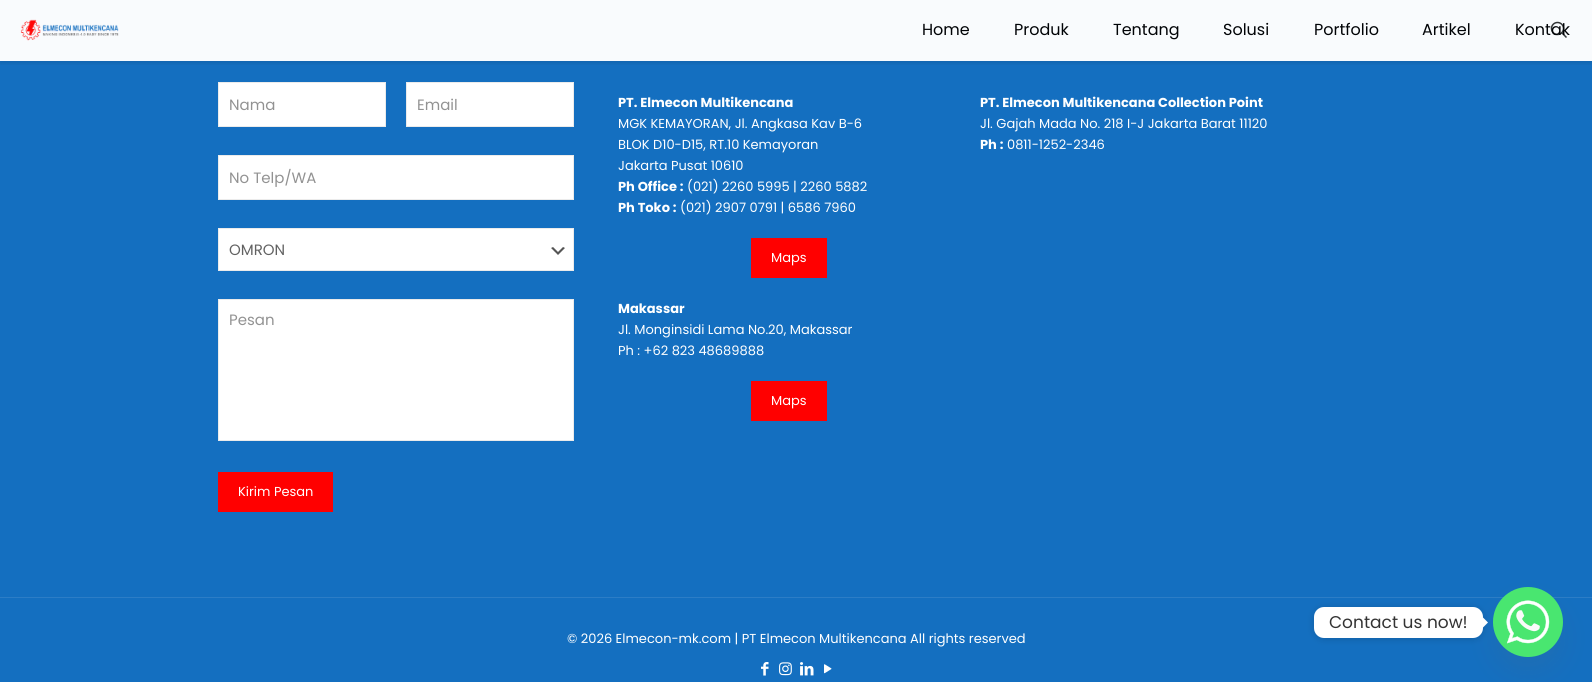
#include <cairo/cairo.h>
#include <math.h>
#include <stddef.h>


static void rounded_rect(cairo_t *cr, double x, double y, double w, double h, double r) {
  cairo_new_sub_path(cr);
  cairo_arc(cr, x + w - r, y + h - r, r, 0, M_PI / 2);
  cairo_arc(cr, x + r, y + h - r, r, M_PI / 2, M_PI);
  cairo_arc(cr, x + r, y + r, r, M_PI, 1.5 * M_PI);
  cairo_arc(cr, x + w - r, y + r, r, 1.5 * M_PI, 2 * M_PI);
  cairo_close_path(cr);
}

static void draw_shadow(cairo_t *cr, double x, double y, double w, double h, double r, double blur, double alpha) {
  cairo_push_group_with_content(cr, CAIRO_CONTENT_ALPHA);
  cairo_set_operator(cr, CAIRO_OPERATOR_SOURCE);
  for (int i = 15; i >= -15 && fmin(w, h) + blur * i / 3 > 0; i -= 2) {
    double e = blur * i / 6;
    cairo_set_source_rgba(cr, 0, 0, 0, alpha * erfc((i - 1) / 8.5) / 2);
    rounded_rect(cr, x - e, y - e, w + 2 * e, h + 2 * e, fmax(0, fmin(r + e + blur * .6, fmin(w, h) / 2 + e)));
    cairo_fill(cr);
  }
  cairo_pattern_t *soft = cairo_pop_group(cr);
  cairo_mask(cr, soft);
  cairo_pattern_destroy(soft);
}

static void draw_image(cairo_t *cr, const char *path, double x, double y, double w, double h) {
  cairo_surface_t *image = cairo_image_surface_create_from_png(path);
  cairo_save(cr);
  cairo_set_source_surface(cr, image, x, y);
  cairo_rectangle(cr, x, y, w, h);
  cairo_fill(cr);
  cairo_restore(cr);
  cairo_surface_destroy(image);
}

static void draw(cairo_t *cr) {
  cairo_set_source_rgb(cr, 20 / 255.0, 111 / 255.0, 192 / 255.0);
  cairo_paint(cr);
  cairo_save(cr);
  cairo_rectangle(cr, 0, 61, 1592, 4);
  cairo_clip(cr);
  cairo_set_source_rgb(cr, 0, 0, 0);
  draw_shadow(cr, 0, 2, 1592, 61, 0, 2.5, 0.1);
  cairo_restore(cr);
  cairo_set_source_rgba(cr, 1, 1, 1, 0.97);
  cairo_rectangle(cr, 0, 0, 1592, 61);
  cairo_fill(cr);
  cairo_arc(cr, 1557.5, 28.5, 6, 0, 2 * M_PI);
  cairo_set_source_rgb(cr, 50 / 255.0, 53 / 255.0, 55 / 255.0);
  cairo_set_line_width(cr, 1.5);
  cairo_stroke(cr);
  cairo_new_path(cr);
  cairo_move_to(cr, 1561.5, 32.5);
  cairo_line_to(cr, 1566.5, 37.5);
  cairo_stroke(cr);
  draw_image(cr, "images/1.png", 20, 19, 99, 22);
  cairo_set_source_rgb(cr, 1, 1, 1);
  cairo_rectangle(cr, 218.5, 82.5, 167, 44);
  cairo_fill_preserve(cr);
  cairo_set_source_rgb(cr, 235 / 255.0, 235 / 255.0, 235 / 255.0);
  cairo_set_line_width(cr, 1);
  cairo_stroke(cr);
  cairo_set_source_rgb(cr, 1, 1, 1);
  cairo_rectangle(cr, 406.5, 82.5, 167, 44);
  cairo_fill_preserve(cr);
  cairo_set_source_rgb(cr, 235 / 255.0, 235 / 255.0, 235 / 255.0);
  cairo_stroke(cr);
  cairo_set_source_rgb(cr, 1, 1, 1);
  cairo_rectangle(cr, 218.5, 155.5, 355, 44);
  cairo_fill_preserve(cr);
  cairo_set_source_rgb(cr, 235 / 255.0, 235 / 255.0, 235 / 255.0);
  cairo_stroke(cr);
  cairo_set_source_rgb(cr, 1, 1, 1);
  cairo_rectangle(cr, 219, 229, 354, 41);
  cairo_fill(cr);
  draw_image(cr, "images/2.png", 551, 247, 14, 8);
  cairo_rectangle(cr, 218.5, 228.5, 355, 42);
  cairo_set_source_rgb(cr, 235 / 255.0, 235 / 255.0, 235 / 255.0);
  cairo_stroke(cr);
  cairo_set_source_rgb(cr, 1, 1, 1);
  cairo_rectangle(cr, 218.5, 299.5, 355, 141);
  cairo_fill_preserve(cr);
  cairo_set_source_rgb(cr, 235 / 255.0, 235 / 255.0, 235 / 255.0);
  cairo_stroke(cr);
  cairo_set_source_rgb(cr, 1, 0, 0);
  cairo_rectangle(cr, 218, 472, 115, 40);
  cairo_fill(cr);
  cairo_rectangle(cr, 751, 238, 76, 40);
  cairo_fill(cr);
  cairo_rectangle(cr, 751, 381, 76, 40);
  cairo_fill(cr);
  cairo_set_source_rgb(cr, 44 / 255.0, 125 / 255.0, 198 / 255.0);
  cairo_rectangle(cr, 0, 597, 1592, 1);
  cairo_fill(cr);
  draw_image(cr, "images/3.png", 761, 662, 8, 14);
  draw_image(cr, "images/4.png", 779, 662, 13, 14);
  draw_image(cr, "images/5.png", 800, 662, 14, 14);
  draw_image(cr, "images/6.png", 824, 664, 8, 10);
  cairo_set_source_rgb(cr, 73 / 255.0, 104 / 255.0, 126 / 255.0);
  draw_shadow(cr, 1493, 603, 70, 70, 35, 12, 0.16);
  draw_image(cr, "images/7.png", 1493, 587, 70, 70);
  cairo_set_source_rgb(cr, 0, 0, 0);
  draw_shadow(cr, 1314, 608, 169, 31, 10, 4, 0.15);
  cairo_set_source_rgb(cr, 1, 1, 1);
  rounded_rect(cr, 1314, 607, 169, 31, 10);
  cairo_fill(cr);
  cairo_new_path(cr);
  cairo_move_to(cr, 1483, 627.5);
  cairo_line_to(cr, 1483, 617.5);
  cairo_line_to(cr, 1488, 622.5);
  cairo_close_path(cr);
  cairo_fill(cr);
  cairo_select_font_face(cr, "Poppins", CAIRO_FONT_SLANT_NORMAL, CAIRO_FONT_WEIGHT_NORMAL);
  cairo_set_font_size(cr, 16);
  cairo_set_source_rgb(cr, 1 / 255.0, 3 / 255.0, 6 / 255.0);
  cairo_move_to(cr, 922, 35);
  cairo_show_text(cr, "Home");
  cairo_move_to(cr, 1014, 35);
  cairo_show_text(cr, "Produk");
  cairo_move_to(cr, 1113, 35);
  cairo_show_text(cr, "Tentang");
  cairo_move_to(cr, 1223, 35);
  cairo_show_text(cr, "Solusi");
  cairo_move_to(cr, 1314, 35);
  cairo_show_text(cr, "Portfolio");
  cairo_move_to(cr, 1422, 35);
  cairo_show_text(cr, "Artikel");
  cairo_move_to(cr, 1515, 35);
  cairo_show_text(cr, "Kontak");
  cairo_set_font_size(cr, 15);
  cairo_set_source_rgb(cr, 146 / 255.0, 146 / 255.0, 146 / 255.0);
  cairo_move_to(cr, 229, 110);
  cairo_show_text(cr, "Nama");
  cairo_move_to(cr, 417, 110);
  cairo_show_text(cr, "Email");
  cairo_move_to(cr, 229, 183);
  cairo_show_text(cr, "No Telp/WA");
  cairo_set_source_rgb(cr, 98 / 255.0, 98 / 255.0, 98 / 255.0);
  cairo_move_to(cr, 229, 255);
  cairo_show_text(cr, "OMRON");
  cairo_set_source_rgb(cr, 146 / 255.0, 146 / 255.0, 146 / 255.0);
  cairo_move_to(cr, 229, 325);
  cairo_show_text(cr, "Pesan");
  cairo_set_font_size(cr, 13);
  cairo_set_source_rgb(cr, 1, 1, 1);
  cairo_move_to(cr, 238, 496);
  cairo_show_text(cr, "Kirim Pesan");
  cairo_select_font_face(cr, "Poppins", CAIRO_FONT_SLANT_NORMAL, CAIRO_FONT_WEIGHT_BOLD);
  cairo_move_to(cr, 618, 107);
  cairo_show_text(cr, "PT. Elmecon Multikencana");
  cairo_select_font_face(cr, "Poppins", CAIRO_FONT_SLANT_NORMAL, CAIRO_FONT_WEIGHT_NORMAL);
  cairo_move_to(cr, 618, 128);
  cairo_show_text(cr, "MGK KEMAYORAN, Jl. Angkasa Kav B-6");
  cairo_move_to(cr, 618, 149);
  cairo_show_text(cr, "BLOK D10-D15, RT.10 Kemayoran");
  cairo_move_to(cr, 618, 170);
  cairo_show_text(cr, "Jakarta Pusat 10610");
  cairo_select_font_face(cr, "Poppins", CAIRO_FONT_SLANT_NORMAL, CAIRO_FONT_WEIGHT_BOLD);
  cairo_move_to(cr, 618, 191);
  cairo_show_text(cr, "Ph Office :");
  cairo_select_font_face(cr, "Poppins", CAIRO_FONT_SLANT_NORMAL, CAIRO_FONT_WEIGHT_NORMAL);
  cairo_move_to(cr, 687, 191);
  cairo_show_text(cr, "(021) 2260 5995 | 2260 5882");
  cairo_select_font_face(cr, "Poppins", CAIRO_FONT_SLANT_NORMAL, CAIRO_FONT_WEIGHT_BOLD);
  cairo_move_to(cr, 618, 212);
  cairo_show_text(cr, "Ph Toko :");
  cairo_select_font_face(cr, "Poppins", CAIRO_FONT_SLANT_NORMAL, CAIRO_FONT_WEIGHT_NORMAL);
  cairo_move_to(cr, 680, 212);
  cairo_show_text(cr, "(021) 2907 0791 | 6586 7960");
  cairo_select_font_face(cr, "Poppins", CAIRO_FONT_SLANT_NORMAL, CAIRO_FONT_WEIGHT_BOLD);
  cairo_move_to(cr, 980, 107);
  cairo_show_text(cr, "PT. Elmecon Multikencana Collection Point");
  cairo_select_font_face(cr, "Poppins", CAIRO_FONT_SLANT_NORMAL, CAIRO_FONT_WEIGHT_NORMAL);
  cairo_move_to(cr, 980, 128);
  cairo_show_text(cr, "Jl. Gajah Mada No. 218 I-J Jakarta Barat 11120");
  cairo_select_font_face(cr, "Poppins", CAIRO_FONT_SLANT_NORMAL, CAIRO_FONT_WEIGHT_BOLD);
  cairo_move_to(cr, 980, 149);
  cairo_show_text(cr, "Ph :");
  cairo_select_font_face(cr, "Poppins", CAIRO_FONT_SLANT_NORMAL, CAIRO_FONT_WEIGHT_NORMAL);
  cairo_move_to(cr, 1007, 149);
  cairo_show_text(cr, "0811-1252-2346");
  cairo_move_to(cr, 771, 262);
  cairo_show_text(cr, "Maps");
  cairo_select_font_face(cr, "Poppins", CAIRO_FONT_SLANT_NORMAL, CAIRO_FONT_WEIGHT_BOLD);
  cairo_move_to(cr, 618, 313);
  cairo_show_text(cr, "Makassar");
  cairo_select_font_face(cr, "Poppins", CAIRO_FONT_SLANT_NORMAL, CAIRO_FONT_WEIGHT_NORMAL);
  cairo_move_to(cr, 618, 334);
  cairo_show_text(cr, "Jl. Monginsidi Lama No.20, Makassar");
  cairo_move_to(cr, 618, 355);
  cairo_show_text(cr, "Ph : +62 823 48689888");
  cairo_move_to(cr, 771, 405);
  cairo_show_text(cr, "Maps");
  cairo_move_to(cr, 567, 643);
  cairo_show_text(cr, "© 2026 Elmecon-mk.com | PT Elmecon Multikencana All rights reserved");
  cairo_set_font_size(cr, 17);
  cairo_set_source_rgb(cr, 51 / 255.0, 51 / 255.0, 51 / 255.0);
  cairo_move_to(cr, 1329, 628);
  cairo_show_text(cr, "Contact us now!");
}

int main(void) {
  cairo_surface_t *surface = cairo_image_surface_create(CAIRO_FORMAT_RGB24, 1592, 682);
  cairo_t *cr = cairo_create(surface);
  cairo_font_options_t *options = cairo_font_options_create();
  cairo_font_options_set_hint_metrics(options, CAIRO_HINT_METRICS_OFF);
  cairo_font_options_set_hint_style(options, CAIRO_HINT_STYLE_NONE);
  cairo_set_font_options(cr, options);
  cairo_set_miter_limit(cr, 4);
  draw(cr);
  cairo_surface_write_to_png(surface, "out.png");
  cairo_font_options_destroy(options);
  cairo_destroy(cr);
  cairo_surface_destroy(surface);
  return 0;
}
